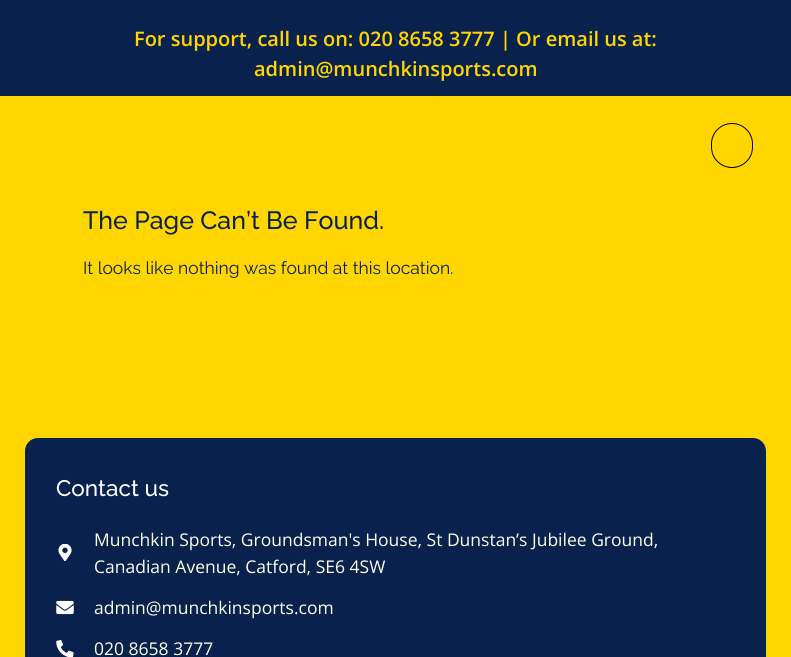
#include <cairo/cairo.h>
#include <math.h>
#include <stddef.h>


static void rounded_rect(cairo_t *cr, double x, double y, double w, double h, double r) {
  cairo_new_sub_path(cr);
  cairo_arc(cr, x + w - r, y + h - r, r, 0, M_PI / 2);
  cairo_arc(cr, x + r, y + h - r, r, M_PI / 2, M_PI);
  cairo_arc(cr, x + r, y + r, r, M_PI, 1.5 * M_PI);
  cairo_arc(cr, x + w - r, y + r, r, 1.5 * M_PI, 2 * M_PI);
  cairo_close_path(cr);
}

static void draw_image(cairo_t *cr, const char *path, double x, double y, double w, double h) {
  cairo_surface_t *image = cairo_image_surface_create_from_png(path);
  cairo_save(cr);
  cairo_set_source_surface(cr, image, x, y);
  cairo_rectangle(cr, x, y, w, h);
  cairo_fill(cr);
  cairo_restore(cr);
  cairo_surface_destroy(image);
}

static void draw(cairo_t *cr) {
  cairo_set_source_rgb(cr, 1, 214 / 255.0, 0);
  cairo_paint(cr);
  cairo_set_source_rgb(cr, 9 / 255.0, 33 / 255.0, 77 / 255.0);
  cairo_rectangle(cr, 0, 0, 791, 96);
  cairo_fill(cr);
  rounded_rect(cr, 711.5, 123.5, 41, 44, 20.5);
  cairo_set_source_rgb(cr, 0, 0, 0);
  cairo_set_line_width(cr, 1);
  cairo_stroke(cr);
  cairo_set_source_rgb(cr, 9 / 255.0, 33 / 255.0, 77 / 255.0);
  rounded_rect(cr, 25, 438, 741, 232, 13);
  cairo_fill(cr);
  draw_image(cr, "images/1.png", 58, 544, 14, 17);
  draw_image(cr, "images/2.png", 56, 600, 18, 15);
  draw_image(cr, "images/3.png", 56, 640, 18, 17);
  cairo_select_font_face(cr, "Open Sans SemiBold", CAIRO_FONT_SLANT_NORMAL, CAIRO_FONT_WEIGHT_NORMAL);
  cairo_set_font_size(cr, 20);
  cairo_set_source_rgb(cr, 1, 214 / 255.0, 0);
  cairo_move_to(cr, 134, 46);
  cairo_show_text(cr, "For support, call us on: 020 8658 3777 | Or email us at:");
  cairo_move_to(cr, 254, 76);
  cairo_show_text(cr, "admin@munchkinsports.com");
  cairo_select_font_face(cr, "Raleway Medium", CAIRO_FONT_SLANT_NORMAL, CAIRO_FONT_WEIGHT_NORMAL);
  cairo_set_font_size(cr, 25);
  cairo_set_source_rgb(cr, 9 / 255.0, 33 / 255.0, 77 / 255.0);
  cairo_move_to(cr, 83, 229);
  cairo_show_text(cr, "The Page Can’t Be Found.");
  cairo_select_font_face(cr, "Raleway", CAIRO_FONT_SLANT_NORMAL, CAIRO_FONT_WEIGHT_NORMAL);
  cairo_set_font_size(cr, 17.5);
  cairo_move_to(cr, 83, 274);
  cairo_show_text(cr, "It looks like nothing was found at this location.");
  cairo_select_font_face(cr, "Raleway Medium", CAIRO_FONT_SLANT_NORMAL, CAIRO_FONT_WEIGHT_NORMAL);
  cairo_set_font_size(cr, 22.5);
  cairo_set_source_rgb(cr, 1, 1, 1);
  cairo_move_to(cr, 56, 496);
  cairo_show_text(cr, "Contact us");
  cairo_select_font_face(cr, "Open Sans", CAIRO_FONT_SLANT_NORMAL, CAIRO_FONT_WEIGHT_NORMAL);
  cairo_set_font_size(cr, 17.5);
  cairo_set_source_rgb(cr, 253 / 255.0, 1, 236 / 255.0);
  cairo_move_to(cr, 94, 546);
  cairo_show_text(cr, "Munchkin Sports, Groundsman's House, St Dunstan’s Jubilee Ground,");
  cairo_move_to(cr, 94, 573);
  cairo_show_text(cr, "Canadian Avenue, Catford, SE6 4SW");
  cairo_move_to(cr, 94, 614);
  cairo_show_text(cr, "admin@munchkinsports.com");
  cairo_move_to(cr, 94, 655);
  cairo_show_text(cr, "020 8658 3777");
}

int main(void) {
  cairo_surface_t *surface = cairo_image_surface_create(CAIRO_FORMAT_RGB24, 791, 657);
  cairo_t *cr = cairo_create(surface);
  cairo_font_options_t *options = cairo_font_options_create();
  cairo_font_options_set_hint_metrics(options, CAIRO_HINT_METRICS_OFF);
  cairo_font_options_set_hint_style(options, CAIRO_HINT_STYLE_NONE);
  cairo_set_font_options(cr, options);
  cairo_set_miter_limit(cr, 4);
  draw(cr);
  cairo_surface_write_to_png(surface, "out.png");
  cairo_font_options_destroy(options);
  cairo_destroy(cr);
  cairo_surface_destroy(surface);
  return 0;
}
